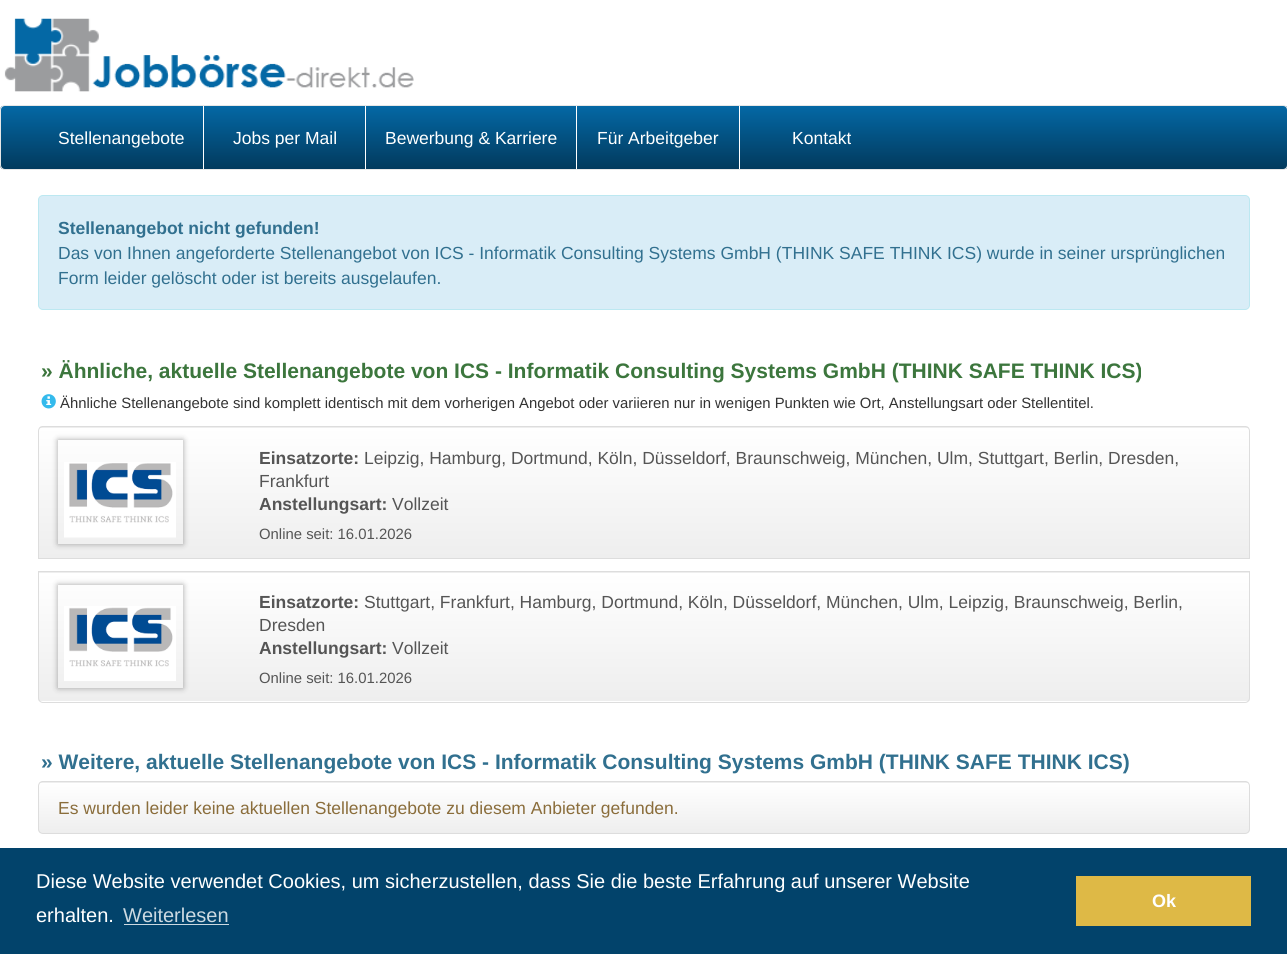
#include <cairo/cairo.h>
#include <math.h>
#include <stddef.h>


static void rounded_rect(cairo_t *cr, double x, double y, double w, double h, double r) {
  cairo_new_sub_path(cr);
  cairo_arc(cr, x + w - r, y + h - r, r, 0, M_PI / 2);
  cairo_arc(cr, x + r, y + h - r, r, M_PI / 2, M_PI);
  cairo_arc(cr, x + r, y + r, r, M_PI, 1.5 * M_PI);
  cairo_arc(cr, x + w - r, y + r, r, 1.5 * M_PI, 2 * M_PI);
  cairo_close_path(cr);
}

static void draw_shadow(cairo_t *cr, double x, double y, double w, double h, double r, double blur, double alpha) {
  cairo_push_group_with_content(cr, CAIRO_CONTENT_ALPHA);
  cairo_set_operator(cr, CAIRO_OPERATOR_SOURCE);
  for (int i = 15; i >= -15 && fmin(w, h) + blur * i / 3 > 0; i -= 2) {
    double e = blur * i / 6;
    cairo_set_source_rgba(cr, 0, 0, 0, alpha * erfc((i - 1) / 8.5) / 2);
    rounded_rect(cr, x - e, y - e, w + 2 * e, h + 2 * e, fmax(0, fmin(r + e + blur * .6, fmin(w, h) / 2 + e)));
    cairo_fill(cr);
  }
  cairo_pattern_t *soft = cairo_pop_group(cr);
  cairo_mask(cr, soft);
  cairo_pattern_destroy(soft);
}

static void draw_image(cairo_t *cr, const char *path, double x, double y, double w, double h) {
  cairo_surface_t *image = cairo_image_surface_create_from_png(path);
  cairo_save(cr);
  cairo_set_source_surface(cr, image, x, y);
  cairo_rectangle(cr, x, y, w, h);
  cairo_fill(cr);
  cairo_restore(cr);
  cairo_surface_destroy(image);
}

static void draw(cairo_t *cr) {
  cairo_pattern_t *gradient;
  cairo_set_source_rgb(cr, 1, 1, 1);
  cairo_paint(cr);
  draw_image(cr, "images/1.png", 4, 18, 95, 74);
  draw_image(cr, "images/2.png", 92, 55, 322, 33);
  cairo_save(cr);
  rounded_rect(cr, 0, 105, 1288, 65, 5);
  cairo_clip(cr);
  gradient = cairo_pattern_create_linear(644, 106, 644, 169);
  cairo_pattern_add_color_stop_rgba(gradient, 0, 4 / 255.0, 104 / 255.0, 165 / 255.0, 1);
  cairo_pattern_add_color_stop_rgba(gradient, 1, 2 / 255.0, 58 / 255.0, 93 / 255.0, 1);
  cairo_set_source(cr, gradient);
  cairo_pattern_destroy(gradient);
  cairo_rectangle(cr, 0, 106, 1287, 63);
  cairo_fill(cr);
  cairo_restore(cr);
  rounded_rect(cr, 0.5, 105.5, 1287, 64, 4.5);
  cairo_set_source_rgb(cr, 231 / 255.0, 231 / 255.0, 231 / 255.0);
  cairo_set_line_width(cr, 1);
  cairo_stroke(cr);
  cairo_set_source_rgb(cr, 1, 1, 1);
  cairo_rectangle(cr, 203, 106, 1, 63);
  cairo_fill(cr);
  cairo_rectangle(cr, 365, 106, 1, 63);
  cairo_fill(cr);
  cairo_rectangle(cr, 576, 106, 1, 63);
  cairo_fill(cr);
  cairo_rectangle(cr, 739, 106, 1, 63);
  cairo_fill(cr);
  cairo_set_source_rgb(cr, 217 / 255.0, 237 / 255.0, 247 / 255.0);
  rounded_rect(cr, 38.5, 195.5, 1211, 114, 4.5);
  cairo_fill_preserve(cr);
  cairo_set_source_rgb(cr, 188 / 255.0, 232 / 255.0, 241 / 255.0);
  cairo_stroke(cr);
  draw_image(cr, "images/3.png", 41, 394, 15, 15);
  cairo_save(cr);
  cairo_new_path(cr);
  cairo_move_to(cr, 43, 426);
  cairo_line_to(cr, 1245, 426);
  cairo_curve_to(cr, 1248, 426, 1250, 428, 1250, 431);
  cairo_line_to(cr, 1250, 559);
  cairo_line_to(cr, 38, 559);
  cairo_line_to(cr, 38, 431);
  cairo_curve_to(cr, 38, 428, 40, 426, 43, 426);
  cairo_close_path(cr);
  cairo_clip(cr);
  gradient = cairo_pattern_create_linear(644, 297, 644, 428);
  cairo_pattern_add_color_stop_rgba(gradient, 0, 1, 1, 1, 1);
  cairo_pattern_add_color_stop_rgba(gradient, 1, 238 / 255.0, 238 / 255.0, 238 / 255.0, 1);
  cairo_set_source(cr, gradient);
  cairo_pattern_destroy(gradient);
  cairo_rectangle(cr, 38, 426, 1212, 2);
  cairo_fill(cr);
  gradient = cairo_pattern_create_linear(644, 427, 644, 558);
  cairo_pattern_add_color_stop_rgba(gradient, 0, 1, 1, 1, 1);
  cairo_pattern_add_color_stop_rgba(gradient, 1, 238 / 255.0, 238 / 255.0, 238 / 255.0, 1);
  cairo_set_source(cr, gradient);
  cairo_pattern_destroy(gradient);
  cairo_rectangle(cr, 38, 428, 1212, 130);
  cairo_fill(cr);
  cairo_restore(cr);
  cairo_new_path(cr);
  cairo_move_to(cr, 43, 426.5);
  cairo_line_to(cr, 1245, 426.5);
  cairo_curve_to(cr, 1247.5, 426.5, 1249.5, 428.5, 1249.5, 431);
  cairo_line_to(cr, 1249.5, 558.5);
  cairo_line_to(cr, 38.5, 558.5);
  cairo_line_to(cr, 38.5, 431);
  cairo_curve_to(cr, 38.5, 428.5, 40.5, 426.5, 43, 426.5);
  cairo_close_path(cr);
  cairo_set_source_rgb(cr, 221 / 255.0, 221 / 255.0, 221 / 255.0);
  cairo_stroke(cr);
  cairo_save(cr);
  cairo_set_fill_rule(cr, CAIRO_FILL_RULE_EVEN_ODD);
  cairo_new_path(cr);
  cairo_move_to(cr, 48, 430);
  cairo_line_to(cr, 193, 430);
  cairo_line_to(cr, 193, 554);
  cairo_line_to(cr, 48, 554);
  cairo_close_path(cr);
  cairo_move_to(cr, 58, 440);
  cairo_line_to(cr, 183, 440);
  cairo_line_to(cr, 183, 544);
  cairo_line_to(cr, 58, 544);
  cairo_close_path(cr);
  cairo_clip(cr);
  cairo_set_source_rgb(cr, 0, 0, 0);
  draw_shadow(cr, 58, 440, 125, 104, 0, 3, 0.35);
  cairo_restore(cr);
  draw_image(cr, "images/4.png", 64, 462, 112, 76);
  gradient = cairo_pattern_create_linear(644, 444, 644, 573);
  cairo_pattern_add_color_stop_rgba(gradient, 0, 1, 1, 1, 1);
  cairo_pattern_add_color_stop_rgba(gradient, 1, 238 / 255.0, 238 / 255.0, 238 / 255.0, 1);
  cairo_set_source(cr, gradient);
  cairo_pattern_destroy(gradient);
  cairo_rectangle(cr, 38, 572, 1212, 1);
  cairo_fill(cr);
  cairo_save(cr);
  cairo_new_path(cr);
  cairo_move_to(cr, 38, 571);
  cairo_line_to(cr, 1250, 571);
  cairo_line_to(cr, 1250, 698);
  cairo_curve_to(cr, 1250, 701, 1248, 703, 1245, 703);
  cairo_line_to(cr, 43, 703);
  cairo_curve_to(cr, 40, 703, 38, 701, 38, 698);
  cairo_close_path(cr);
  cairo_clip(cr);
  gradient = cairo_pattern_create_linear(644, 572, 644, 701);
  cairo_pattern_add_color_stop_rgba(gradient, 0, 1, 1, 1, 1);
  cairo_pattern_add_color_stop_rgba(gradient, 1, 238 / 255.0, 238 / 255.0, 238 / 255.0, 1);
  cairo_set_source(cr, gradient);
  cairo_pattern_destroy(gradient);
  cairo_rectangle(cr, 38, 573, 1212, 128);
  cairo_fill(cr);
  cairo_restore(cr);
  cairo_new_path(cr);
  cairo_move_to(cr, 38.5, 571.5);
  cairo_line_to(cr, 1249.5, 571.5);
  cairo_line_to(cr, 1249.5, 698);
  cairo_curve_to(cr, 1249.5, 700.5, 1247.5, 702.5, 1245, 702.5);
  cairo_line_to(cr, 43, 702.5);
  cairo_curve_to(cr, 40.5, 702.5, 38.5, 700.5, 38.5, 698);
  cairo_close_path(cr);
  cairo_set_source_rgb(cr, 221 / 255.0, 221 / 255.0, 221 / 255.0);
  cairo_stroke(cr);
  cairo_save(cr);
  cairo_set_fill_rule(cr, CAIRO_FILL_RULE_EVEN_ODD);
  cairo_new_path(cr);
  cairo_move_to(cr, 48, 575);
  cairo_line_to(cr, 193, 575);
  cairo_line_to(cr, 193, 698);
  cairo_line_to(cr, 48, 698);
  cairo_close_path(cr);
  cairo_move_to(cr, 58, 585);
  cairo_line_to(cr, 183, 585);
  cairo_line_to(cr, 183, 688);
  cairo_line_to(cr, 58, 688);
  cairo_close_path(cr);
  cairo_clip(cr);
  cairo_set_source_rgb(cr, 0, 0, 0);
  draw_shadow(cr, 58, 585, 125, 103, 0, 3, 0.35);
  cairo_restore(cr);
  draw_image(cr, "images/5.png", 64, 606, 112, 75);
  cairo_save(cr);
  rounded_rect(cr, 38, 781, 1212, 53, 5);
  cairo_clip(cr);
  gradient = cairo_pattern_create_linear(644, 732, 644, 783);
  cairo_pattern_add_color_stop_rgba(gradient, 0, 1, 1, 1, 1);
  cairo_pattern_add_color_stop_rgba(gradient, 1, 238 / 255.0, 238 / 255.0, 238 / 255.0, 1);
  cairo_set_source(cr, gradient);
  cairo_pattern_destroy(gradient);
  cairo_rectangle(cr, 38, 781, 1212, 2);
  cairo_fill(cr);
  gradient = cairo_pattern_create_linear(644, 782, 644, 833);
  cairo_pattern_add_color_stop_rgba(gradient, 0, 1, 1, 1, 1);
  cairo_pattern_add_color_stop_rgba(gradient, 1, 238 / 255.0, 238 / 255.0, 238 / 255.0, 1);
  cairo_set_source(cr, gradient);
  cairo_pattern_destroy(gradient);
  cairo_rectangle(cr, 38, 783, 1212, 50);
  cairo_fill(cr);
  cairo_restore(cr);
  rounded_rect(cr, 38.5, 781.5, 1211, 52, 4.5);
  cairo_stroke(cr);
  cairo_set_source_rgb(cr, 2 / 255.0, 67 / 255.0, 107 / 255.0);
  cairo_rectangle(cr, 0, 848, 1287, 106);
  cairo_fill(cr);
  cairo_set_source_rgb(cr, 204 / 255.0, 217 / 255.0, 225 / 255.0);
  cairo_rectangle(cr, 124, 924, 105, 1);
  cairo_fill(cr);
  cairo_set_source_rgb(cr, 222 / 255.0, 185 / 255.0, 70 / 255.0);
  cairo_rectangle(cr, 1076, 876, 175, 50);
  cairo_fill(cr);
  cairo_select_font_face(cr, "Liberation Sans", CAIRO_FONT_SLANT_NORMAL, CAIRO_FONT_WEIGHT_NORMAL);
  cairo_set_font_size(cr, 17.5);
  cairo_set_source_rgb(cr, 1, 1, 1);
  cairo_move_to(cr, 58, 144);
  cairo_show_text(cr, "Stellenangebote");
  cairo_move_to(cr, 233, 144);
  cairo_show_text(cr, "Jobs per Mail");
  cairo_move_to(cr, 385, 144);
  cairo_show_text(cr, "Bewerbung & Karriere");
  cairo_move_to(cr, 597, 144);
  cairo_show_text(cr, "Für Arbeitgeber");
  cairo_move_to(cr, 792, 144);
  cairo_show_text(cr, "Kontakt");
  cairo_select_font_face(cr, "Liberation Sans", CAIRO_FONT_SLANT_NORMAL, CAIRO_FONT_WEIGHT_BOLD);
  cairo_set_source_rgb(cr, 49 / 255.0, 112 / 255.0, 143 / 255.0);
  cairo_move_to(cr, 58, 234);
  cairo_show_text(cr, "Stellenangebot nicht gefunden!");
  cairo_select_font_face(cr, "Liberation Sans", CAIRO_FONT_SLANT_NORMAL, CAIRO_FONT_WEIGHT_NORMAL);
  cairo_move_to(cr, 58, 259);
  cairo_show_text(cr, "Das von Ihnen angeforderte Stellenangebot von ICS - Informatik Consulting Systems GmbH (THINK SAFE THINK ICS) wurde in seiner ursprünglichen");
  cairo_move_to(cr, 58, 284);
  cairo_show_text(cr, "Form leider gelöscht oder ist bereits ausgelaufen.");
  cairo_select_font_face(cr, "Liberation Sans", CAIRO_FONT_SLANT_NORMAL, CAIRO_FONT_WEIGHT_BOLD);
  cairo_set_font_size(cr, 21);
  cairo_set_source_rgb(cr, 60 / 255.0, 118 / 255.0, 61 / 255.0);
  cairo_move_to(cr, 41, 378);
  cairo_show_text(cr, "» Ähnliche, aktuelle Stellenangebote von ICS - Informatik Consulting Systems GmbH (THINK SAFE THINK ICS)");
  cairo_select_font_face(cr, "Liberation Sans", CAIRO_FONT_SLANT_NORMAL, CAIRO_FONT_WEIGHT_NORMAL);
  cairo_set_font_size(cr, 14.88);
  cairo_set_source_rgb(cr, 51 / 255.0, 51 / 255.0, 51 / 255.0);
  cairo_move_to(cr, 60, 408);
  cairo_show_text(cr, "Ähnliche Stellenangebote sind komplett identisch mit dem vorherigen Angebot oder variieren nur in wenigen Punkten wie Ort, Anstellungsart oder Stellentitel.");
  cairo_select_font_face(cr, "Liberation Sans", CAIRO_FONT_SLANT_NORMAL, CAIRO_FONT_WEIGHT_BOLD);
  cairo_set_font_size(cr, 17.5);
  cairo_set_source_rgb(cr, 85 / 255.0, 85 / 255.0, 85 / 255.0);
  cairo_move_to(cr, 259, 464);
  cairo_show_text(cr, "Einsatzorte:");
  cairo_select_font_face(cr, "Liberation Sans", CAIRO_FONT_SLANT_NORMAL, CAIRO_FONT_WEIGHT_NORMAL);
  cairo_move_to(cr, 364, 464);
  cairo_show_text(cr, "Leipzig, Hamburg, Dortmund, Köln, Düsseldorf, Braunschweig, München, Ulm, Stuttgart, Berlin, Dresden,");
  cairo_move_to(cr, 259, 487);
  cairo_show_text(cr, "Frankfurt");
  cairo_select_font_face(cr, "Liberation Sans", CAIRO_FONT_SLANT_NORMAL, CAIRO_FONT_WEIGHT_BOLD);
  cairo_move_to(cr, 259, 510);
  cairo_show_text(cr, "Anstellungsart:");
  cairo_select_font_face(cr, "Liberation Sans", CAIRO_FONT_SLANT_NORMAL, CAIRO_FONT_WEIGHT_NORMAL);
  cairo_move_to(cr, 392, 510);
  cairo_show_text(cr, "Vollzeit");
  cairo_set_font_size(cr, 14.88);
  cairo_move_to(cr, 259, 539);
  cairo_show_text(cr, "Online seit: 16.01.2026");
  cairo_select_font_face(cr, "Liberation Sans", CAIRO_FONT_SLANT_NORMAL, CAIRO_FONT_WEIGHT_BOLD);
  cairo_set_font_size(cr, 17.5);
  cairo_move_to(cr, 259, 608);
  cairo_show_text(cr, "Einsatzorte:");
  cairo_select_font_face(cr, "Liberation Sans", CAIRO_FONT_SLANT_NORMAL, CAIRO_FONT_WEIGHT_NORMAL);
  cairo_move_to(cr, 364, 608);
  cairo_show_text(cr, "Stuttgart, Frankfurt, Hamburg, Dortmund, Köln, Düsseldorf, München, Ulm, Leipzig, Braunschweig, Berlin,");
  cairo_move_to(cr, 259, 631);
  cairo_show_text(cr, "Dresden");
  cairo_select_font_face(cr, "Liberation Sans", CAIRO_FONT_SLANT_NORMAL, CAIRO_FONT_WEIGHT_BOLD);
  cairo_move_to(cr, 259, 654);
  cairo_show_text(cr, "Anstellungsart:");
  cairo_select_font_face(cr, "Liberation Sans", CAIRO_FONT_SLANT_NORMAL, CAIRO_FONT_WEIGHT_NORMAL);
  cairo_move_to(cr, 392, 654);
  cairo_show_text(cr, "Vollzeit");
  cairo_set_font_size(cr, 14.88);
  cairo_move_to(cr, 259, 683);
  cairo_show_text(cr, "Online seit: 16.01.2026");
  cairo_select_font_face(cr, "Liberation Sans", CAIRO_FONT_SLANT_NORMAL, CAIRO_FONT_WEIGHT_BOLD);
  cairo_set_font_size(cr, 21);
  cairo_set_source_rgb(cr, 49 / 255.0, 112 / 255.0, 143 / 255.0);
  cairo_move_to(cr, 41, 769);
  cairo_show_text(cr, "» Weitere, aktuelle Stellenangebote von ICS - Informatik Consulting Systems GmbH (THINK SAFE THINK ICS)");
  cairo_select_font_face(cr, "Liberation Sans", CAIRO_FONT_SLANT_NORMAL, CAIRO_FONT_WEIGHT_NORMAL);
  cairo_set_font_size(cr, 17.5);
  cairo_set_source_rgb(cr, 138 / 255.0, 109 / 255.0, 59 / 255.0);
  cairo_move_to(cr, 58, 814);
  cairo_show_text(cr, "Es wurden leider keine aktuellen Stellenangebote zu diesem Anbieter gefunden.");
  cairo_set_font_size(cr, 20);
  cairo_set_source_rgb(cr, 1, 1, 1);
  cairo_move_to(cr, 36, 888);
  cairo_show_text(cr, "Diese Website verwendet Cookies, um sicherzustellen, dass Sie die beste Erfahrung auf unserer Website");
  cairo_move_to(cr, 36, 922);
  cairo_show_text(cr, "erhalten.");
  cairo_set_source_rgb(cr, 204 / 255.0, 217 / 255.0, 225 / 255.0);
  cairo_move_to(cr, 123, 922);
  cairo_show_text(cr, "Weiterlesen");
  cairo_select_font_face(cr, "Liberation Sans", CAIRO_FONT_SLANT_NORMAL, CAIRO_FONT_WEIGHT_BOLD);
  cairo_set_font_size(cr, 18);
  cairo_set_source_rgb(cr, 1, 1, 1);
  cairo_move_to(cr, 1152, 907);
  cairo_show_text(cr, "Ok");
}

int main(void) {
  cairo_surface_t *surface = cairo_image_surface_create(CAIRO_FORMAT_RGB24, 1287, 954);
  cairo_t *cr = cairo_create(surface);
  cairo_font_options_t *options = cairo_font_options_create();
  cairo_font_options_set_hint_metrics(options, CAIRO_HINT_METRICS_OFF);
  cairo_font_options_set_hint_style(options, CAIRO_HINT_STYLE_NONE);
  cairo_set_font_options(cr, options);
  cairo_set_miter_limit(cr, 4);
  draw(cr);
  cairo_surface_write_to_png(surface, "out.png");
  cairo_font_options_destroy(options);
  cairo_destroy(cr);
  cairo_surface_destroy(surface);
  return 0;
}
